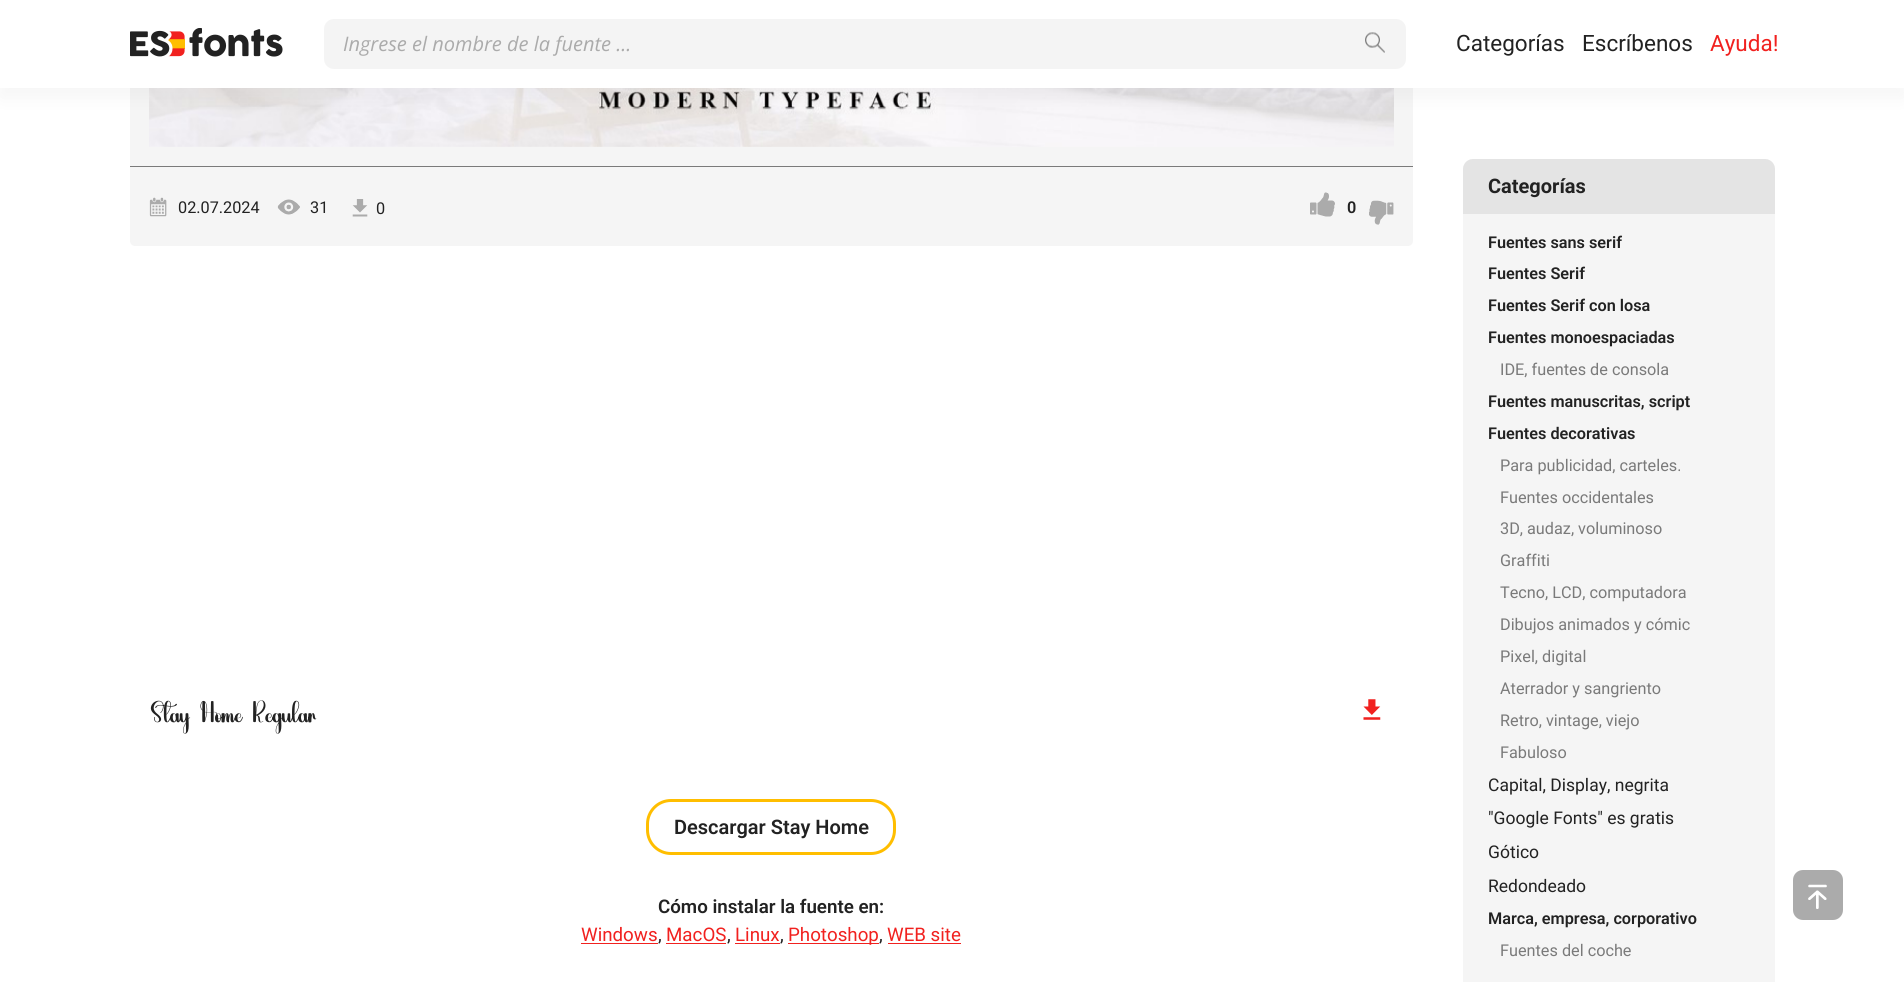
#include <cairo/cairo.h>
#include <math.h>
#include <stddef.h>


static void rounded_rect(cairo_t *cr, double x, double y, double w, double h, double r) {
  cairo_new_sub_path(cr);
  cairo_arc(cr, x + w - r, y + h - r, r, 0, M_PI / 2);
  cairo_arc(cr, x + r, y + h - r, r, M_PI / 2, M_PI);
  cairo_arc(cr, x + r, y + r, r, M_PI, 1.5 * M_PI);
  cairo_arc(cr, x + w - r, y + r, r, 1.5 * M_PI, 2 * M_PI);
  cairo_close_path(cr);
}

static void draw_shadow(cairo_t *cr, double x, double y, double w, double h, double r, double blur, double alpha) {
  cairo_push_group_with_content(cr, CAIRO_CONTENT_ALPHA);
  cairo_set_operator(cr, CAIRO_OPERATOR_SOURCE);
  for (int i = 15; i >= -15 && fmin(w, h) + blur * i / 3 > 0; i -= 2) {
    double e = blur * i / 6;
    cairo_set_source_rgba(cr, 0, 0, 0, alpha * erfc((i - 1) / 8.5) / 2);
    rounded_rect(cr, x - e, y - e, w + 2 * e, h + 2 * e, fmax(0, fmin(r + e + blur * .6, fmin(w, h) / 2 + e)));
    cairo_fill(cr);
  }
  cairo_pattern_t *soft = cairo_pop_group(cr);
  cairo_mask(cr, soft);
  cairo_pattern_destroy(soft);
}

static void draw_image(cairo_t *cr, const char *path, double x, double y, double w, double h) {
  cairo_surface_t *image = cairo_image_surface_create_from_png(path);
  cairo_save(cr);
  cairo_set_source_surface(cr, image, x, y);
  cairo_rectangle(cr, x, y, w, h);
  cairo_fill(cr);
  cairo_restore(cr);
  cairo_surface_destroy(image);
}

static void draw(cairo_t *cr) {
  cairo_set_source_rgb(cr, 1, 1, 1);
  cairo_paint(cr);
  cairo_set_source_rgb(cr, 245 / 255.0, 245 / 255.0, 245 / 255.0);
  rounded_rect(cr, 130, -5, 1283, 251, 5);
  cairo_fill(cr);
  draw_image(cr, "images/3.png", 149, 88, 1245, 59);
  cairo_set_source_rgb(cr, 0, 0, 0);
  draw_shadow(cr, 0, 10, 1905, 88, 0, 10, 0.04);
  cairo_set_source_rgb(cr, 1, 1, 1);
  cairo_rectangle(cr, 0, 0, 1904, 88);
  cairo_fill(cr);
  draw_image(cr, "images/1.png", 130, 28, 153, 29);
  cairo_set_source_rgb(cr, 244 / 255.0, 244 / 255.0, 244 / 255.0);
  rounded_rect(cr, 324, 19, 1082, 50, 10);
  cairo_fill(cr);
  draw_image(cr, "images/2.png", 1365, 32, 20, 21);
  cairo_set_source_rgb(cr, 122 / 255.0, 122 / 255.0, 122 / 255.0);
  cairo_rectangle(cr, 130, 166, 1283, 1);
  cairo_fill(cr);
  draw_image(cr, "images/4.png", 149, 197, 18, 20);
  draw_image(cr, "images/5.png", 277, 199, 23, 16);
  draw_image(cr, "images/6.png", 352, 199, 16, 18);
  draw_image(cr, "images/7.png", 1310, 192, 25, 25);
  draw_image(cr, "images/8.png", 1369, 200, 25, 25);
  draw_image(cr, "images/9.png", 1363, 699, 18, 21);
  rounded_rect(cr, 647.5, 800.5, 247, 53, 23.5);
  cairo_set_source_rgb(cr, 1, 190 / 255.0, 0);
  cairo_set_line_width(cr, 3);
  cairo_stroke(cr);
  cairo_set_source_rgb(cr, 241 / 255.0, 33 / 255.0, 31 / 255.0);
  cairo_rectangle(cr, 581, 943, 77, 1);
  cairo_fill(cr);
  cairo_rectangle(cr, 666, 943, 60, 1);
  cairo_fill(cr);
  cairo_rectangle(cr, 735, 943, 45, 1);
  cairo_fill(cr);
  cairo_rectangle(cr, 788, 943, 91, 1);
  cairo_fill(cr);
  cairo_rectangle(cr, 888, 943, 73, 1);
  cairo_fill(cr);
  cairo_set_source_rgb(cr, 245 / 255.0, 245 / 255.0, 245 / 255.0);
  rounded_rect(cr, 1463, 159, 312, 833, 10);
  cairo_fill(cr);
  cairo_set_source_rgba(cr, 34 / 255.0, 34 / 255.0, 34 / 255.0, 0.08);
  cairo_new_path(cr);
  cairo_move_to(cr, 1473, 159);
  cairo_line_to(cr, 1765, 159);
  cairo_curve_to(cr, 1770.5, 159, 1775, 163.5, 1775, 169);
  cairo_line_to(cr, 1775, 214);
  cairo_line_to(cr, 1463, 214);
  cairo_line_to(cr, 1463, 169);
  cairo_curve_to(cr, 1463, 163.5, 1467.5, 159, 1473, 159);
  cairo_close_path(cr);
  cairo_fill(cr);
  cairo_set_source_rgb(cr, 171 / 255.0, 171 / 255.0, 171 / 255.0);
  rounded_rect(cr, 1793, 870, 50, 50, 10);
  cairo_fill(cr);
  draw_image(cr, "images/10.png", 1808, 884, 19, 25);
  cairo_select_font_face(cr, "Open Sans", CAIRO_FONT_SLANT_ITALIC, CAIRO_FONT_WEIGHT_NORMAL);
  cairo_set_font_size(cr, 20);
  cairo_move_to(cr, 343, 51);
  cairo_show_text(cr, "Ingrese el nombre de la fuente ...");
  cairo_select_font_face(cr, "Roboto", CAIRO_FONT_SLANT_NORMAL, CAIRO_FONT_WEIGHT_NORMAL);
  cairo_set_font_size(cr, 22.5);
  cairo_set_source_rgb(cr, 34 / 255.0, 34 / 255.0, 34 / 255.0);
  cairo_move_to(cr, 1456, 51);
  cairo_show_text(cr, "Categorías");
  cairo_move_to(cr, 1582, 51);
  cairo_show_text(cr, "Escríbenos");
  cairo_set_source_rgb(cr, 241 / 255.0, 33 / 255.0, 31 / 255.0);
  cairo_move_to(cr, 1710, 51);
  cairo_show_text(cr, "Ayuda!");
  cairo_set_font_size(cr, 16.25);
  cairo_set_source_rgb(cr, 34 / 255.0, 34 / 255.0, 34 / 255.0);
  cairo_move_to(cr, 178, 213);
  cairo_show_text(cr, "02.07.2024");
  cairo_move_to(cr, 310, 213);
  cairo_show_text(cr, "31");
  cairo_move_to(cr, 376, 214);
  cairo_show_text(cr, "0");
  cairo_select_font_face(cr, "Roboto SemiBold", CAIRO_FONT_SLANT_NORMAL, CAIRO_FONT_WEIGHT_NORMAL);
  cairo_move_to(cr, 1347, 213);
  cairo_show_text(cr, "0");
  cairo_select_font_face(cr, "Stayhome", CAIRO_FONT_SLANT_NORMAL, CAIRO_FONT_WEIGHT_NORMAL);
  cairo_set_font_size(cr, 37.5);
  cairo_move_to(cr, 149, 727);
  cairo_show_text(cr, "Stay Home Regular");
  cairo_select_font_face(cr, "Roboto SemiBold", CAIRO_FONT_SLANT_NORMAL, CAIRO_FONT_WEIGHT_NORMAL);
  cairo_set_font_size(cr, 20);
  cairo_move_to(cr, 674, 834);
  cairo_show_text(cr, "Descargar Stay Home");
  cairo_set_font_size(cr, 18.75);
  cairo_move_to(cr, 658, 913);
  cairo_show_text(cr, "Cómo instalar la fuente en:");
  cairo_select_font_face(cr, "Roboto", CAIRO_FONT_SLANT_NORMAL, CAIRO_FONT_WEIGHT_NORMAL);
  cairo_set_source_rgb(cr, 241 / 255.0, 33 / 255.0, 31 / 255.0);
  cairo_move_to(cr, 581, 941);
  cairo_show_text(cr, "Windows");
  cairo_set_source_rgb(cr, 34 / 255.0, 34 / 255.0, 34 / 255.0);
  cairo_move_to(cr, 658, 941);
  cairo_show_text(cr, ",");
  cairo_set_source_rgb(cr, 241 / 255.0, 33 / 255.0, 31 / 255.0);
  cairo_move_to(cr, 666, 941);
  cairo_show_text(cr, "MacOS");
  cairo_set_source_rgb(cr, 34 / 255.0, 34 / 255.0, 34 / 255.0);
  cairo_move_to(cr, 727, 941);
  cairo_show_text(cr, ",");
  cairo_set_source_rgb(cr, 241 / 255.0, 33 / 255.0, 31 / 255.0);
  cairo_move_to(cr, 735, 941);
  cairo_show_text(cr, "Linux");
  cairo_set_source_rgb(cr, 34 / 255.0, 34 / 255.0, 34 / 255.0);
  cairo_move_to(cr, 780, 941);
  cairo_show_text(cr, ",");
  cairo_set_source_rgb(cr, 241 / 255.0, 33 / 255.0, 31 / 255.0);
  cairo_move_to(cr, 788, 941);
  cairo_show_text(cr, "Photoshop");
  cairo_set_source_rgb(cr, 34 / 255.0, 34 / 255.0, 34 / 255.0);
  cairo_move_to(cr, 879, 941);
  cairo_show_text(cr, ",");
  cairo_set_source_rgb(cr, 241 / 255.0, 33 / 255.0, 31 / 255.0);
  cairo_move_to(cr, 887, 941);
  cairo_show_text(cr, "WEB site");
  cairo_select_font_face(cr, "Roboto", CAIRO_FONT_SLANT_NORMAL, CAIRO_FONT_WEIGHT_BOLD);
  cairo_set_font_size(cr, 20);
  cairo_set_source_rgb(cr, 34 / 255.0, 34 / 255.0, 34 / 255.0);
  cairo_move_to(cr, 1488, 193);
  cairo_show_text(cr, "Categorías");
  cairo_select_font_face(cr, "Roboto SemiBold", CAIRO_FONT_SLANT_NORMAL, CAIRO_FONT_WEIGHT_NORMAL);
  cairo_set_font_size(cr, 16.25);
  cairo_move_to(cr, 1488, 248);
  cairo_show_text(cr, "Fuentes sans serif");
  cairo_move_to(cr, 1488, 279);
  cairo_show_text(cr, "Fuentes Serif");
  cairo_move_to(cr, 1488, 311);
  cairo_show_text(cr, "Fuentes Serif con losa");
  cairo_move_to(cr, 1488, 343);
  cairo_show_text(cr, "Fuentes monoespaciadas");
  cairo_select_font_face(cr, "Roboto", CAIRO_FONT_SLANT_NORMAL, CAIRO_FONT_WEIGHT_NORMAL);
  cairo_set_source_rgb(cr, 122 / 255.0, 122 / 255.0, 122 / 255.0);
  cairo_move_to(cr, 1500, 375);
  cairo_show_text(cr, "IDE, fuentes de consola");
  cairo_select_font_face(cr, "Roboto SemiBold", CAIRO_FONT_SLANT_NORMAL, CAIRO_FONT_WEIGHT_NORMAL);
  cairo_set_source_rgb(cr, 34 / 255.0, 34 / 255.0, 34 / 255.0);
  cairo_move_to(cr, 1488, 407);
  cairo_show_text(cr, "Fuentes manuscritas, script");
  cairo_move_to(cr, 1488, 439);
  cairo_show_text(cr, "Fuentes decorativas");
  cairo_select_font_face(cr, "Roboto", CAIRO_FONT_SLANT_NORMAL, CAIRO_FONT_WEIGHT_NORMAL);
  cairo_set_source_rgb(cr, 122 / 255.0, 122 / 255.0, 122 / 255.0);
  cairo_move_to(cr, 1500, 471);
  cairo_show_text(cr, "Para publicidad, carteles.");
  cairo_move_to(cr, 1500, 503);
  cairo_show_text(cr, "Fuentes occidentales");
  cairo_move_to(cr, 1500, 534);
  cairo_show_text(cr, "3D, audaz, voluminoso");
  cairo_move_to(cr, 1500, 566);
  cairo_show_text(cr, "Graffiti");
  cairo_move_to(cr, 1500, 598);
  cairo_show_text(cr, "Tecno, LCD, computadora");
  cairo_move_to(cr, 1500, 630);
  cairo_show_text(cr, "Dibujos animados y cómic");
  cairo_move_to(cr, 1500, 662);
  cairo_show_text(cr, "Pixel, digital");
  cairo_move_to(cr, 1500, 694);
  cairo_show_text(cr, "Aterrador y sangriento");
  cairo_move_to(cr, 1500, 726);
  cairo_show_text(cr, "Retro, vintage, viejo");
  cairo_move_to(cr, 1500, 758);
  cairo_show_text(cr, "Fabuloso");
  cairo_set_font_size(cr, 17.5);
  cairo_set_source_rgb(cr, 34 / 255.0, 34 / 255.0, 34 / 255.0);
  cairo_move_to(cr, 1488, 791);
  cairo_show_text(cr, "Capital, Display, negrita");
  cairo_move_to(cr, 1488, 824);
  cairo_show_text(cr, "\"Google Fonts\" es gratis");
  cairo_move_to(cr, 1488, 858);
  cairo_show_text(cr, "Gótico");
  cairo_move_to(cr, 1488, 892);
  cairo_show_text(cr, "Redondeado");
  cairo_select_font_face(cr, "Roboto SemiBold", CAIRO_FONT_SLANT_NORMAL, CAIRO_FONT_WEIGHT_NORMAL);
  cairo_set_font_size(cr, 16.25);
  cairo_move_to(cr, 1488, 924);
  cairo_show_text(cr, "Marca, empresa, corporativo");
  cairo_select_font_face(cr, "Roboto", CAIRO_FONT_SLANT_NORMAL, CAIRO_FONT_WEIGHT_NORMAL);
  cairo_set_source_rgb(cr, 122 / 255.0, 122 / 255.0, 122 / 255.0);
  cairo_move_to(cr, 1500, 956);
  cairo_show_text(cr, "Fuentes del coche");
}

int main(void) {
  cairo_surface_t *surface = cairo_image_surface_create(CAIRO_FORMAT_RGB24, 1904, 982);
  cairo_t *cr = cairo_create(surface);
  cairo_font_options_t *options = cairo_font_options_create();
  cairo_font_options_set_hint_metrics(options, CAIRO_HINT_METRICS_OFF);
  cairo_font_options_set_hint_style(options, CAIRO_HINT_STYLE_NONE);
  cairo_set_font_options(cr, options);
  cairo_set_miter_limit(cr, 4);
  draw(cr);
  cairo_surface_write_to_png(surface, "out.png");
  cairo_font_options_destroy(options);
  cairo_destroy(cr);
  cairo_surface_destroy(surface);
  return 0;
}
